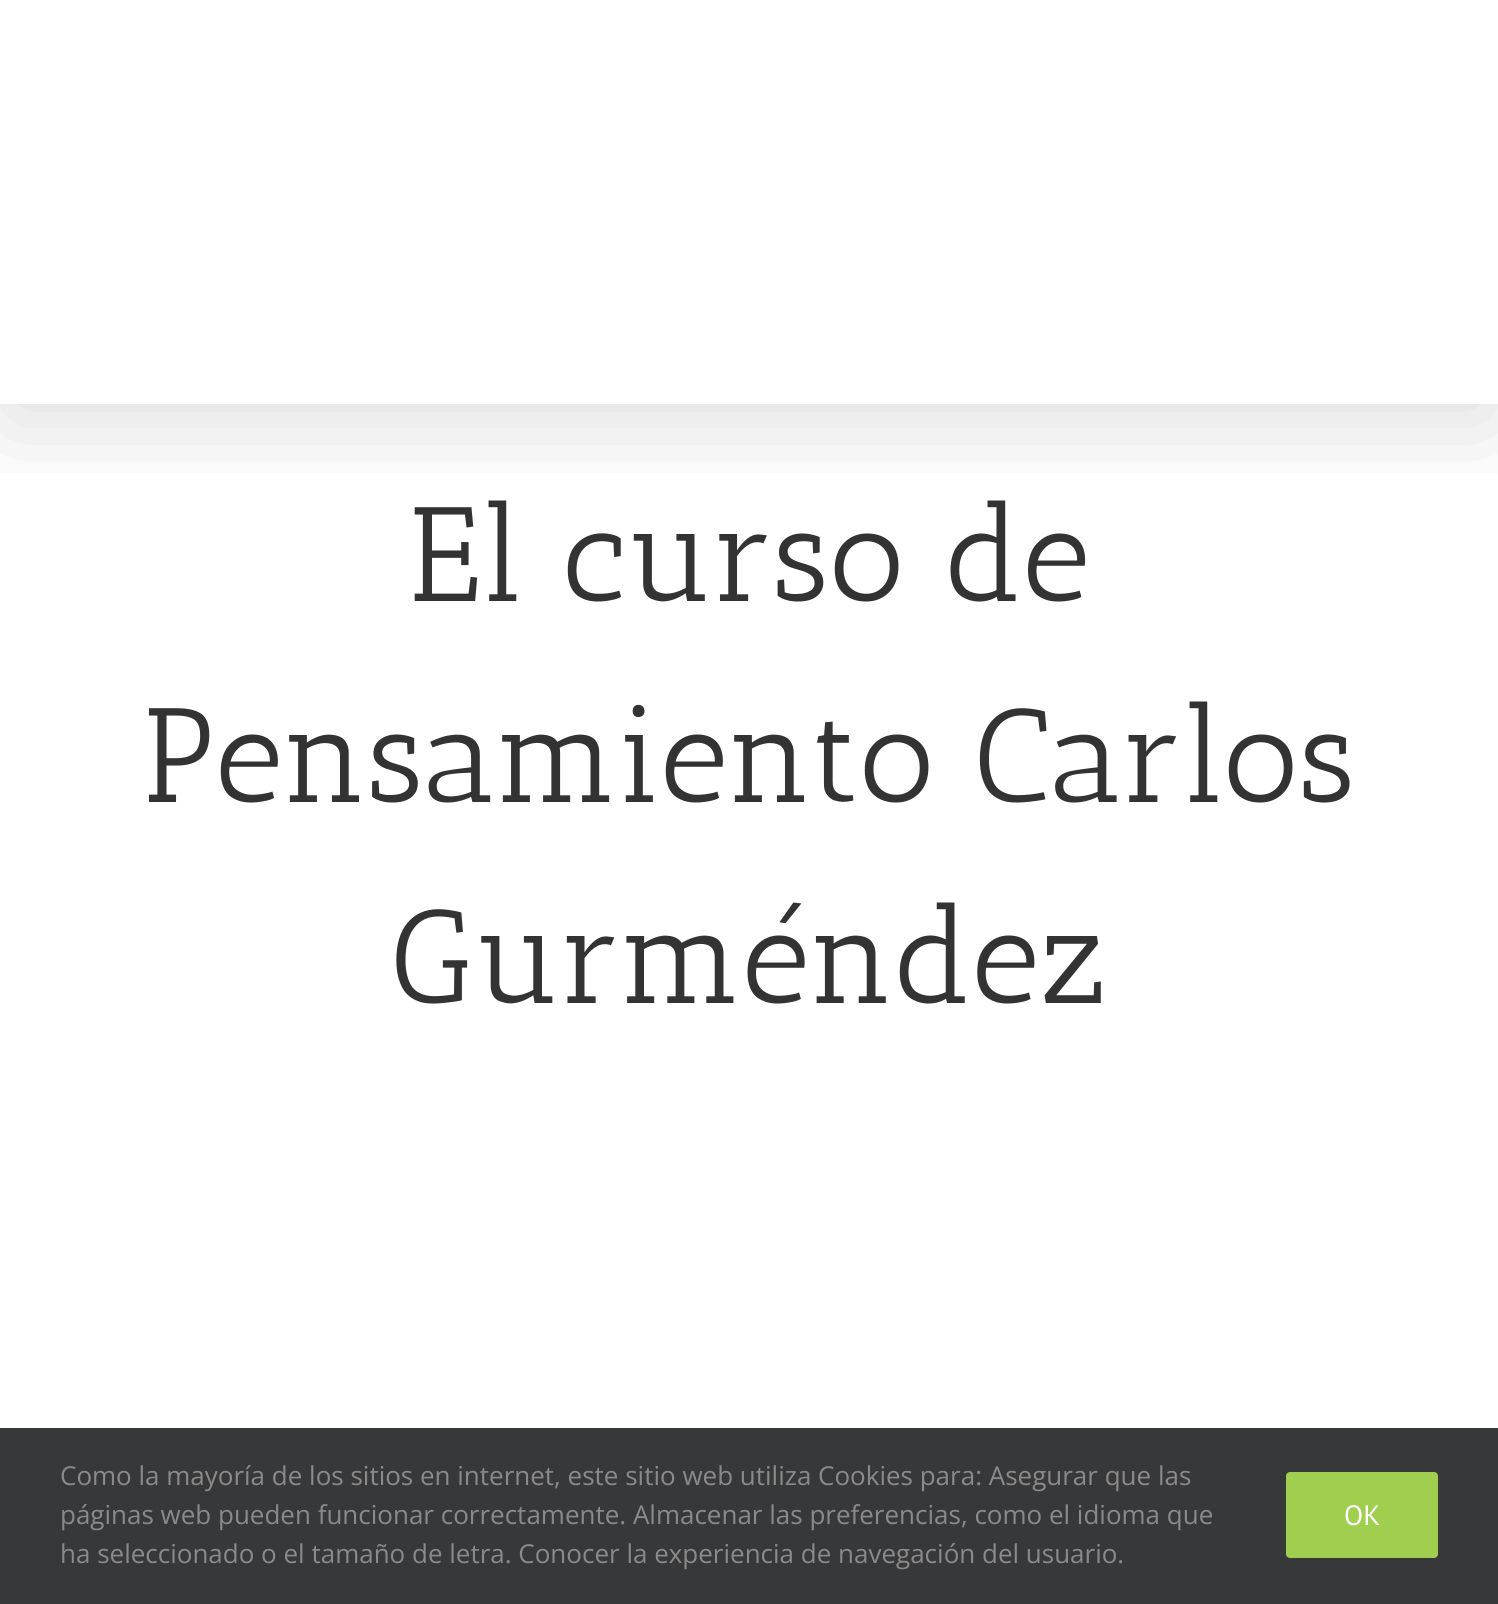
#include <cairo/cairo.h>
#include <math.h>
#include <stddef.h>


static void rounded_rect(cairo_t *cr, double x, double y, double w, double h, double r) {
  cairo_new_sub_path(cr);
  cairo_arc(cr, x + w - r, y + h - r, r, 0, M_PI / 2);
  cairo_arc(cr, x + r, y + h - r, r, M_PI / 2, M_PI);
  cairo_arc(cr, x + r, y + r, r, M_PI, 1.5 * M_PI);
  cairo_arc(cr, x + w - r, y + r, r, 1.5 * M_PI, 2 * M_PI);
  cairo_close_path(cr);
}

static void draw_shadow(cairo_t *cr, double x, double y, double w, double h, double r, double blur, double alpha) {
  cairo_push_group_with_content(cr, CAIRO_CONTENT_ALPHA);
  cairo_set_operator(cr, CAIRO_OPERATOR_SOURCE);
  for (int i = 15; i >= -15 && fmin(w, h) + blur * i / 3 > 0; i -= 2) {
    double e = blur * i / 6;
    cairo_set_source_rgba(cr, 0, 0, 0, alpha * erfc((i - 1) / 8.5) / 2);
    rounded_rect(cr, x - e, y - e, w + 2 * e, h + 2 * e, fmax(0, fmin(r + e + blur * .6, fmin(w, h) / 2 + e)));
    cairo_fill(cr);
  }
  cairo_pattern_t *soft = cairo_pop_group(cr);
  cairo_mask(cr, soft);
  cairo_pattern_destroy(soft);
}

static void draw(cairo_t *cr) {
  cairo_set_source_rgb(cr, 1, 1, 1);
  cairo_paint(cr);
  cairo_save(cr);
  cairo_rectangle(cr, 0, 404, 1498, 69);
  cairo_clip(cr);
  cairo_set_source_rgb(cr, 0, 0, 0);
  draw_shadow(cr, 4, 24, 1490, 396, 0, 50, 0.14);
  cairo_restore(cr);
  cairo_set_source_rgb(cr, 54 / 255.0, 56 / 255.0, 57 / 255.0);
  cairo_rectangle(cr, 0, 1428, 1498, 176);
  cairo_fill(cr);
  cairo_set_source_rgb(cr, 160 / 255.0, 206 / 255.0, 78 / 255.0);
  rounded_rect(cr, 1286, 1472, 152, 86, 4);
  cairo_fill(cr);
  cairo_select_font_face(cr, "Antic Slab", CAIRO_FONT_SLANT_NORMAL, CAIRO_FONT_WEIGHT_NORMAL);
  cairo_set_font_size(cr, 134);
  cairo_set_source_rgb(cr, 51 / 255.0, 51 / 255.0, 51 / 255.0);
  cairo_move_to(cr, 408, 601);
  cairo_show_text(cr, "El curso de");
  cairo_move_to(cr, 142, 802);
  cairo_show_text(cr, "Pensamiento Carlos");
  cairo_move_to(cr, 391, 1003);
  cairo_show_text(cr, "Gurméndez");
  cairo_select_font_face(cr, "Open Sans", CAIRO_FONT_SLANT_NORMAL, CAIRO_FONT_WEIGHT_NORMAL);
  cairo_set_font_size(cr, 26);
  cairo_set_source_rgb(cr, 140 / 255.0, 137 / 255.0, 137 / 255.0);
  cairo_move_to(cr, 60, 1485);
  cairo_show_text(cr, "Como la mayoría de los sitios en internet, este sitio web utiliza Cookies para: Asegurar que las");
  cairo_move_to(cr, 60, 1524);
  cairo_show_text(cr, "páginas web pueden funcionar correctamente. Almacenar las preferencias, como el idioma que");
  cairo_move_to(cr, 60, 1563);
  cairo_show_text(cr, "ha seleccionado o el tamaño de letra. Conocer la experiencia de navegación del usuario.");
  cairo_select_font_face(cr, "PT Sans", CAIRO_FONT_SLANT_NORMAL, CAIRO_FONT_WEIGHT_NORMAL);
  cairo_set_font_size(cr, 28);
  cairo_set_source_rgb(cr, 1, 1, 1);
  cairo_move_to(cr, 1344, 1525);
  cairo_show_text(cr, "OK");
}

int main(void) {
  cairo_surface_t *surface = cairo_image_surface_create(CAIRO_FORMAT_RGB24, 1498, 1604);
  cairo_t *cr = cairo_create(surface);
  cairo_font_options_t *options = cairo_font_options_create();
  cairo_font_options_set_hint_metrics(options, CAIRO_HINT_METRICS_OFF);
  cairo_font_options_set_hint_style(options, CAIRO_HINT_STYLE_NONE);
  cairo_set_font_options(cr, options);
  cairo_set_miter_limit(cr, 4);
  draw(cr);
  cairo_surface_write_to_png(surface, "out.png");
  cairo_font_options_destroy(options);
  cairo_destroy(cr);
  cairo_surface_destroy(surface);
  return 0;
}
